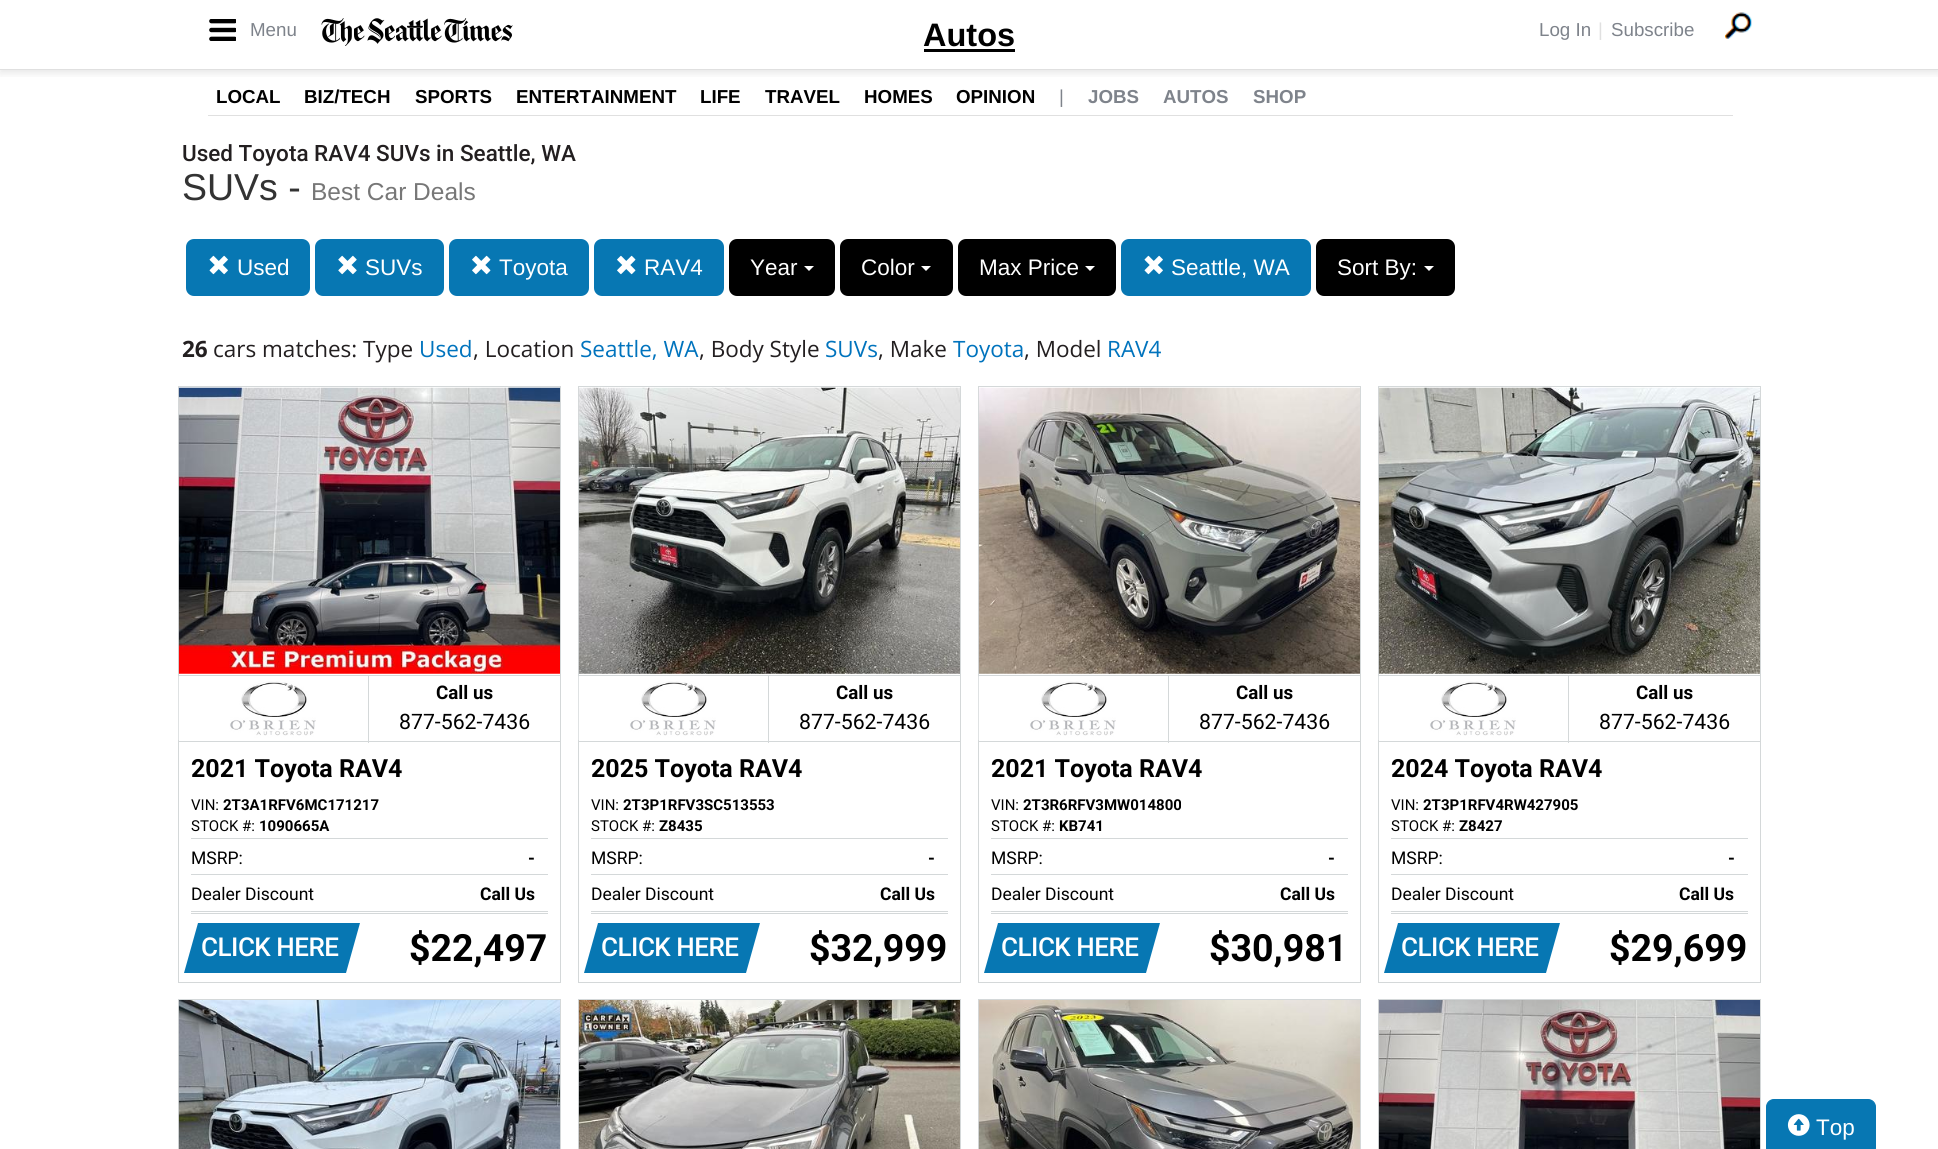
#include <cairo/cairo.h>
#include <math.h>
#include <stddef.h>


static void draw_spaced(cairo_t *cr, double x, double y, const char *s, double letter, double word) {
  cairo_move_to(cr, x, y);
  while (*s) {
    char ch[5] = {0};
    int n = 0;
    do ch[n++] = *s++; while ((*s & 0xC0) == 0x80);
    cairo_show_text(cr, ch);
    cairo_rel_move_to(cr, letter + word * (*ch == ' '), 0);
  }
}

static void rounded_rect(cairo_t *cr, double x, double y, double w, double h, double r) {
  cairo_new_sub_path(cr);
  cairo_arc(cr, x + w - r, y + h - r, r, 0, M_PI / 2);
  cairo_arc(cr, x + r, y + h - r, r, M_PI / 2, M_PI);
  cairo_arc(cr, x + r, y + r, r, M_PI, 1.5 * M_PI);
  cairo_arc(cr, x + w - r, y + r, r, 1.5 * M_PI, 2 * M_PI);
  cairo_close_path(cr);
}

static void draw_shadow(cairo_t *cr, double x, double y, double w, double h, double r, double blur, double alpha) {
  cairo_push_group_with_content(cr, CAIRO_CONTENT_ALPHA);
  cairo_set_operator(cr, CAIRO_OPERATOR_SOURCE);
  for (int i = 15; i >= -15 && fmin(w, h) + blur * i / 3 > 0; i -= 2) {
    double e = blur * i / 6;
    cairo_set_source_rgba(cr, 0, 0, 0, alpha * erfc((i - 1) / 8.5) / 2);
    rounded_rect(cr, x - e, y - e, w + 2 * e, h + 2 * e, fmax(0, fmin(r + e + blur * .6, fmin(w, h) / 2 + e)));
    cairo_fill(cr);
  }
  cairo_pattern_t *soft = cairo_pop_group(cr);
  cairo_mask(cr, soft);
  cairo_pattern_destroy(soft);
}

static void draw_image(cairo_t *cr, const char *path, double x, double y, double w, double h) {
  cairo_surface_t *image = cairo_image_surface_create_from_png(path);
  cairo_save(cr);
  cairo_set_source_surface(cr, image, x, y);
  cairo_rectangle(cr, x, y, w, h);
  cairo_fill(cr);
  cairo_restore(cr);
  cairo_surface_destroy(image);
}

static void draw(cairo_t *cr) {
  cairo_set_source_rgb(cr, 1, 1, 1);
  cairo_paint(cr);
  cairo_save(cr);
  cairo_rectangle(cr, 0, 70, 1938, 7);
  cairo_clip(cr);
  cairo_set_source_rgb(cr, 0, 0, 0);
  draw_shadow(cr, 0, 3, 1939, 70, 0, 4.5, 0.1);
  cairo_restore(cr);
  cairo_set_source_rgb(cr, 224 / 255.0, 224 / 255.0, 224 / 255.0);
  cairo_rectangle(cr, 0, 69, 1938, 1);
  cairo_fill(cr);
  draw_image(cr, "images/1.png", 209, 19, 27, 22);
  draw_image(cr, "images/2.png", 321, 18, 192, 28);
  draw_image(cr, "images/3.png", 1725, 12, 27, 27);
  cairo_set_source_rgb(cr, 0, 0, 0);
  cairo_rectangle(cr, 924, 49, 91, 3);
  cairo_fill(cr);
  cairo_set_source_rgb(cr, 224 / 255.0, 224 / 255.0, 224 / 255.0);
  cairo_rectangle(cr, 208, 115, 1525, 1);
  cairo_fill(cr);
  cairo_set_source_rgb(cr, 7 / 255.0, 119 / 255.0, 179 / 255.0);
  rounded_rect(cr, 186, 239, 124, 57, 8);
  cairo_fill(cr);
  draw_image(cr, "images/4.png", 209, 255, 19, 20);
  rounded_rect(cr, 315, 239, 129, 57, 8);
  cairo_fill(cr);
  draw_image(cr, "images/5.png", 338, 255, 19, 20);
  rounded_rect(cr, 449, 239, 140, 57, 8);
  cairo_fill(cr);
  draw_image(cr, "images/6.png", 472, 255, 19, 20);
  rounded_rect(cr, 594, 239, 130, 57, 8);
  cairo_fill(cr);
  draw_image(cr, "images/6.png", 617, 255, 19, 20);
  cairo_set_source_rgb(cr, 0, 0, 0);
  rounded_rect(cr, 729, 239, 106, 57, 8);
  cairo_fill(cr);
  cairo_set_source_rgb(cr, 1, 1, 1);
  cairo_new_path(cr);
  cairo_move_to(cr, 804, 266);
  cairo_line_to(cr, 814, 266);
  cairo_line_to(cr, 809, 271);
  cairo_close_path(cr);
  cairo_fill(cr);
  cairo_set_source_rgb(cr, 0, 0, 0);
  rounded_rect(cr, 840, 239, 113, 57, 8);
  cairo_fill(cr);
  cairo_set_source_rgb(cr, 1, 1, 1);
  cairo_new_path(cr);
  cairo_move_to(cr, 921, 266);
  cairo_line_to(cr, 931, 266);
  cairo_line_to(cr, 926, 271);
  cairo_close_path(cr);
  cairo_fill(cr);
  cairo_set_source_rgb(cr, 0, 0, 0);
  rounded_rect(cr, 958, 239, 158, 57, 8);
  cairo_fill(cr);
  cairo_set_source_rgb(cr, 1, 1, 1);
  cairo_new_path(cr);
  cairo_move_to(cr, 1085, 266);
  cairo_line_to(cr, 1095, 266);
  cairo_line_to(cr, 1090, 271);
  cairo_close_path(cr);
  cairo_fill(cr);
  cairo_set_source_rgb(cr, 7 / 255.0, 119 / 255.0, 179 / 255.0);
  rounded_rect(cr, 1121, 239, 190, 57, 8);
  cairo_fill(cr);
  draw_image(cr, "images/4.png", 1144, 255, 19, 20);
  cairo_set_source_rgb(cr, 0, 0, 0);
  rounded_rect(cr, 1316, 239, 139, 57, 8);
  cairo_fill(cr);
  cairo_set_source_rgb(cr, 1, 1, 1);
  cairo_new_path(cr);
  cairo_move_to(cr, 1424, 266);
  cairo_line_to(cr, 1434, 266);
  cairo_line_to(cr, 1429, 271);
  cairo_close_path(cr);
  cairo_fill(cr);
  cairo_rectangle(cr, 178.5, 386.5, 382, 596);
  cairo_set_source_rgb(cr, 212 / 255.0, 216 / 255.0, 217 / 255.0);
  cairo_set_line_width(cr, 1);
  cairo_stroke(cr);
  draw_image(cr, "images/7.png", 178, 387, 382, 287);
  cairo_rectangle(cr, 179, 675, 381, 1);
  cairo_fill(cr);
  cairo_rectangle(cr, 368, 675, 1, 68);
  cairo_fill(cr);
  cairo_rectangle(cr, 179, 741, 381, 1);
  cairo_fill(cr);
  draw_image(cr, "images/8.png", 178, 676, 138, 64);
  cairo_rectangle(cr, 191, 838, 357, 1);
  cairo_fill(cr);
  cairo_rectangle(cr, 191, 874, 357, 1);
  cairo_fill(cr);
  cairo_rectangle(cr, 191, 911, 357, 1);
  cairo_fill(cr);
  cairo_rectangle(cr, 191, 913, 357, 1);
  cairo_fill(cr);
  cairo_set_source_rgb(cr, 7 / 255.0, 119 / 255.0, 179 / 255.0);
  cairo_new_path(cr);
  cairo_move_to(cr, 198, 923);
  cairo_line_to(cr, 360, 923);
  cairo_line_to(cr, 346, 973);
  cairo_line_to(cr, 184, 973);
  cairo_close_path(cr);
  cairo_fill(cr);
  cairo_rectangle(cr, 578.5, 386.5, 382, 596);
  cairo_set_source_rgb(cr, 212 / 255.0, 216 / 255.0, 217 / 255.0);
  cairo_stroke(cr);
  draw_image(cr, "images/9.png", 578, 387, 382, 287);
  cairo_rectangle(cr, 579, 675, 381, 1);
  cairo_fill(cr);
  cairo_rectangle(cr, 768, 675, 1, 68);
  cairo_fill(cr);
  cairo_rectangle(cr, 579, 741, 381, 1);
  cairo_fill(cr);
  draw_image(cr, "images/8.png", 578, 676, 138, 64);
  cairo_rectangle(cr, 591, 838, 357, 1);
  cairo_fill(cr);
  cairo_rectangle(cr, 591, 874, 357, 1);
  cairo_fill(cr);
  cairo_rectangle(cr, 591, 911, 357, 1);
  cairo_fill(cr);
  cairo_rectangle(cr, 591, 913, 357, 1);
  cairo_fill(cr);
  cairo_set_source_rgb(cr, 7 / 255.0, 119 / 255.0, 179 / 255.0);
  cairo_new_path(cr);
  cairo_move_to(cr, 598, 923);
  cairo_line_to(cr, 760, 923);
  cairo_line_to(cr, 746, 973);
  cairo_line_to(cr, 584, 973);
  cairo_close_path(cr);
  cairo_fill(cr);
  cairo_rectangle(cr, 978.5, 386.5, 382, 596);
  cairo_set_source_rgb(cr, 212 / 255.0, 216 / 255.0, 217 / 255.0);
  cairo_stroke(cr);
  draw_image(cr, "images/10.png", 978, 387, 382, 287);
  cairo_rectangle(cr, 979, 675, 381, 1);
  cairo_fill(cr);
  cairo_rectangle(cr, 1168, 675, 1, 68);
  cairo_fill(cr);
  cairo_rectangle(cr, 979, 741, 381, 1);
  cairo_fill(cr);
  draw_image(cr, "images/8.png", 978, 676, 138, 64);
  cairo_rectangle(cr, 991, 838, 357, 1);
  cairo_fill(cr);
  cairo_rectangle(cr, 991, 874, 357, 1);
  cairo_fill(cr);
  cairo_rectangle(cr, 991, 911, 357, 1);
  cairo_fill(cr);
  cairo_rectangle(cr, 991, 913, 357, 1);
  cairo_fill(cr);
  cairo_set_source_rgb(cr, 7 / 255.0, 119 / 255.0, 179 / 255.0);
  cairo_new_path(cr);
  cairo_move_to(cr, 998, 923);
  cairo_line_to(cr, 1160, 923);
  cairo_line_to(cr, 1146, 973);
  cairo_line_to(cr, 984, 973);
  cairo_close_path(cr);
  cairo_fill(cr);
  cairo_rectangle(cr, 1378.5, 386.5, 382, 596);
  cairo_set_source_rgb(cr, 212 / 255.0, 216 / 255.0, 217 / 255.0);
  cairo_stroke(cr);
  draw_image(cr, "images/11.png", 1378, 387, 382, 287);
  cairo_rectangle(cr, 1379, 675, 381, 1);
  cairo_fill(cr);
  cairo_rectangle(cr, 1568, 675, 1, 68);
  cairo_fill(cr);
  cairo_rectangle(cr, 1379, 741, 381, 1);
  cairo_fill(cr);
  draw_image(cr, "images/8.png", 1378, 676, 138, 64);
  cairo_rectangle(cr, 1391, 838, 357, 1);
  cairo_fill(cr);
  cairo_rectangle(cr, 1391, 874, 357, 1);
  cairo_fill(cr);
  cairo_rectangle(cr, 1391, 911, 357, 1);
  cairo_fill(cr);
  cairo_rectangle(cr, 1391, 913, 357, 1);
  cairo_fill(cr);
  cairo_set_source_rgb(cr, 7 / 255.0, 119 / 255.0, 179 / 255.0);
  cairo_new_path(cr);
  cairo_move_to(cr, 1398, 923);
  cairo_line_to(cr, 1560, 923);
  cairo_line_to(cr, 1546, 973);
  cairo_line_to(cr, 1384, 973);
  cairo_close_path(cr);
  cairo_fill(cr);
  cairo_rectangle(cr, 178.5, 999.5, 382, 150);
  cairo_set_source_rgb(cr, 212 / 255.0, 216 / 255.0, 217 / 255.0);
  cairo_stroke(cr);
  draw_image(cr, "images/12.png", 178, 1000, 382, 149);
  cairo_rectangle(cr, 578.5, 999.5, 382, 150);
  cairo_stroke(cr);
  draw_image(cr, "images/13.png", 578, 1000, 382, 149);
  cairo_rectangle(cr, 978.5, 999.5, 382, 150);
  cairo_stroke(cr);
  draw_image(cr, "images/14.png", 978, 1000, 382, 149);
  cairo_rectangle(cr, 1378.5, 999.5, 382, 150);
  cairo_stroke(cr);
  draw_image(cr, "images/15.png", 1378, 1000, 382, 149);
  cairo_set_source_rgb(cr, 7 / 255.0, 119 / 255.0, 179 / 255.0);
  rounded_rect(cr, 1766.5, 1099.5, 109, 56, 7.5);
  cairo_fill_preserve(cr);
  cairo_stroke(cr);
  draw_image(cr, "images/16.png", 1787, 1114, 23, 22);
  cairo_select_font_face(cr, "Liberation Sans", CAIRO_FONT_SLANT_NORMAL, CAIRO_FONT_WEIGHT_NORMAL);
  cairo_set_font_size(cr, 18.75);
  cairo_set_source_rgb(cr, 126 / 255.0, 131 / 255.0, 139 / 255.0);
  cairo_move_to(cr, 250, 36);
  cairo_show_text(cr, "Menu");
  cairo_move_to(cr, 1539, 36);
  cairo_show_text(cr, "Log In");
  cairo_set_source_rgb(cr, 224 / 255.0, 224 / 255.0, 224 / 255.0);
  cairo_move_to(cr, 1598, 36);
  cairo_show_text(cr, "|");
  cairo_set_source_rgb(cr, 126 / 255.0, 131 / 255.0, 139 / 255.0);
  cairo_move_to(cr, 1611, 36);
  cairo_show_text(cr, "Subscribe");
  cairo_select_font_face(cr, "Liberation Sans", CAIRO_FONT_SLANT_NORMAL, CAIRO_FONT_WEIGHT_BOLD);
  cairo_set_font_size(cr, 32.5);
  cairo_set_source_rgb(cr, 0, 0, 0);
  cairo_move_to(cr, 923, 46);
  cairo_show_text(cr, "Autos");
  cairo_set_font_size(cr, 18.75);
  cairo_move_to(cr, 216, 103);
  cairo_show_text(cr, "LOCAL");
  cairo_move_to(cr, 304, 103);
  cairo_show_text(cr, "BIZ/TECH");
  cairo_move_to(cr, 415, 103);
  cairo_show_text(cr, "SPORTS");
  cairo_move_to(cr, 516, 103);
  cairo_show_text(cr, "ENTERTAINMENT");
  cairo_move_to(cr, 700, 103);
  cairo_show_text(cr, "LIFE");
  cairo_move_to(cr, 765, 103);
  cairo_show_text(cr, "TRAVEL");
  cairo_move_to(cr, 864, 103);
  cairo_show_text(cr, "HOMES");
  cairo_move_to(cr, 956, 103);
  cairo_show_text(cr, "OPINION");
  cairo_select_font_face(cr, "Liberation Sans", CAIRO_FONT_SLANT_NORMAL, CAIRO_FONT_WEIGHT_NORMAL);
  cairo_set_source_rgb(cr, 126 / 255.0, 131 / 255.0, 139 / 255.0);
  cairo_move_to(cr, 1059, 103);
  cairo_show_text(cr, "|");
  cairo_select_font_face(cr, "Liberation Sans", CAIRO_FONT_SLANT_NORMAL, CAIRO_FONT_WEIGHT_BOLD);
  cairo_move_to(cr, 1088, 103);
  cairo_show_text(cr, "JOBS");
  cairo_move_to(cr, 1163, 103);
  cairo_show_text(cr, "AUTOS");
  cairo_move_to(cr, 1253, 103);
  cairo_show_text(cr, "SHOP");
  cairo_select_font_face(cr, "Roboto Medium", CAIRO_FONT_SLANT_NORMAL, CAIRO_FONT_WEIGHT_NORMAL);
  cairo_set_font_size(cr, 22.5);
  cairo_set_source_rgb(cr, 35 / 255.0, 31 / 255.0, 32 / 255.0);
  cairo_move_to(cr, 182, 161);
  cairo_show_text(cr, "Used Toyota RAV4 SUVs in Seattle, WA");
  cairo_select_font_face(cr, "Liberation Sans", CAIRO_FONT_SLANT_NORMAL, CAIRO_FONT_WEIGHT_NORMAL);
  cairo_set_font_size(cr, 37.5);
  cairo_set_source_rgb(cr, 51 / 255.0, 51 / 255.0, 51 / 255.0);
  cairo_move_to(cr, 182, 200);
  cairo_show_text(cr, "SUVs -");
  cairo_set_font_size(cr, 24.5);
  cairo_set_source_rgb(cr, 119 / 255.0, 119 / 255.0, 119 / 255.0);
  cairo_move_to(cr, 311, 200);
  cairo_show_text(cr, "Best Car Deals");
  cairo_set_font_size(cr, 22.5);
  cairo_set_source_rgb(cr, 1, 1, 1);
  cairo_move_to(cr, 237, 275);
  cairo_show_text(cr, "Used");
  cairo_move_to(cr, 365, 275);
  cairo_show_text(cr, "SUVs");
  cairo_move_to(cr, 499, 275);
  cairo_show_text(cr, "Toyota");
  cairo_move_to(cr, 644, 275);
  cairo_show_text(cr, "RAV4");
  cairo_move_to(cr, 750, 275);
  cairo_show_text(cr, "Year");
  cairo_move_to(cr, 861, 275);
  cairo_show_text(cr, "Color");
  cairo_move_to(cr, 979, 275);
  cairo_show_text(cr, "Max Price");
  cairo_move_to(cr, 1171, 275);
  cairo_show_text(cr, "Seattle, WA");
  cairo_move_to(cr, 1337, 275);
  cairo_show_text(cr, "Sort By:");
  cairo_select_font_face(cr, "Open Sans", CAIRO_FONT_SLANT_NORMAL, CAIRO_FONT_WEIGHT_BOLD);
  cairo_set_source_rgb(cr, 35 / 255.0, 31 / 255.0, 32 / 255.0);
  cairo_move_to(cr, 182, 357);
  cairo_show_text(cr, "26");
  cairo_select_font_face(cr, "Open Sans", CAIRO_FONT_SLANT_NORMAL, CAIRO_FONT_WEIGHT_NORMAL);
  cairo_move_to(cr, 213, 357);
  cairo_show_text(cr, "cars matches: Type");
  cairo_set_source_rgb(cr, 0, 115 / 255.0, 189 / 255.0);
  cairo_move_to(cr, 419, 357);
  cairo_show_text(cr, "Used");
  cairo_set_source_rgb(cr, 35 / 255.0, 31 / 255.0, 32 / 255.0);
  cairo_move_to(cr, 473, 357);
  cairo_show_text(cr, ", Location");
  cairo_set_source_rgb(cr, 0, 115 / 255.0, 189 / 255.0);
  cairo_move_to(cr, 580, 357);
  cairo_show_text(cr, "Seattle, WA");
  cairo_set_source_rgb(cr, 35 / 255.0, 31 / 255.0, 32 / 255.0);
  cairo_move_to(cr, 699, 357);
  cairo_show_text(cr, ", Body Style");
  cairo_set_source_rgb(cr, 0, 115 / 255.0, 189 / 255.0);
  cairo_move_to(cr, 825, 357);
  cairo_show_text(cr, "SUVs");
  cairo_set_source_rgb(cr, 35 / 255.0, 31 / 255.0, 32 / 255.0);
  cairo_move_to(cr, 878, 357);
  cairo_show_text(cr, ", Make");
  cairo_set_source_rgb(cr, 0, 115 / 255.0, 189 / 255.0);
  cairo_move_to(cr, 953, 357);
  cairo_show_text(cr, "Toyota");
  cairo_set_source_rgb(cr, 35 / 255.0, 31 / 255.0, 32 / 255.0);
  cairo_move_to(cr, 1024, 357);
  cairo_show_text(cr, ", Model");
  cairo_set_source_rgb(cr, 0, 115 / 255.0, 189 / 255.0);
  cairo_move_to(cr, 1107, 357);
  cairo_show_text(cr, "RAV4");
  cairo_select_font_face(cr, "Roboto", CAIRO_FONT_SLANT_NORMAL, CAIRO_FONT_WEIGHT_BOLD);
  cairo_set_font_size(cr, 18.75);
  cairo_set_source_rgb(cr, 0, 0, 0);
  cairo_move_to(cr, 436, 699);
  cairo_show_text(cr, "Call us");
  cairo_select_font_face(cr, "Roboto", CAIRO_FONT_SLANT_NORMAL, CAIRO_FONT_WEIGHT_NORMAL);
  cairo_set_font_size(cr, 21.25);
  cairo_move_to(cr, 399, 729);
  cairo_show_text(cr, "877-562-7436");
  cairo_select_font_face(cr, "Roboto", CAIRO_FONT_SLANT_NORMAL, CAIRO_FONT_WEIGHT_BOLD);
  cairo_set_font_size(cr, 25);
  cairo_move_to(cr, 191, 777);
  cairo_show_text(cr, "2021 Toyota RAV4");
  cairo_select_font_face(cr, "Roboto", CAIRO_FONT_SLANT_NORMAL, CAIRO_FONT_WEIGHT_NORMAL);
  cairo_set_font_size(cr, 15);
  cairo_move_to(cr, 191, 810);
  cairo_show_text(cr, "VIN:");
  cairo_select_font_face(cr, "Roboto", CAIRO_FONT_SLANT_NORMAL, CAIRO_FONT_WEIGHT_BOLD);
  cairo_move_to(cr, 223, 810);
  cairo_show_text(cr, "2T3A1RFV6MC171217");
  cairo_select_font_face(cr, "Roboto", CAIRO_FONT_SLANT_NORMAL, CAIRO_FONT_WEIGHT_NORMAL);
  cairo_move_to(cr, 191, 831);
  cairo_show_text(cr, "STOCK #:");
  cairo_select_font_face(cr, "Roboto", CAIRO_FONT_SLANT_NORMAL, CAIRO_FONT_WEIGHT_BOLD);
  cairo_move_to(cr, 259, 831);
  cairo_show_text(cr, "1090665A");
  cairo_select_font_face(cr, "Roboto", CAIRO_FONT_SLANT_NORMAL, CAIRO_FONT_WEIGHT_NORMAL);
  cairo_set_font_size(cr, 17.5);
  cairo_move_to(cr, 191, 864);
  cairo_show_text(cr, "MSRP:");
  cairo_select_font_face(cr, "Roboto", CAIRO_FONT_SLANT_NORMAL, CAIRO_FONT_WEIGHT_BOLD);
  cairo_move_to(cr, 528, 864);
  cairo_show_text(cr, "-");
  cairo_select_font_face(cr, "Roboto", CAIRO_FONT_SLANT_NORMAL, CAIRO_FONT_WEIGHT_NORMAL);
  cairo_move_to(cr, 191, 900);
  cairo_show_text(cr, "Dealer Discount");
  cairo_select_font_face(cr, "Roboto", CAIRO_FONT_SLANT_NORMAL, CAIRO_FONT_WEIGHT_BOLD);
  cairo_move_to(cr, 480, 900);
  cairo_show_text(cr, "Call Us");
  cairo_select_font_face(cr, "Roboto Medium", CAIRO_FONT_SLANT_NORMAL, CAIRO_FONT_WEIGHT_NORMAL);
  cairo_set_font_size(cr, 26);
  cairo_set_source_rgb(cr, 1, 1, 1);
  draw_spaced(cr, 201, 956, "CLICK HERE", -0.5, 0);
  cairo_select_font_face(cr, "Roboto", CAIRO_FONT_SLANT_NORMAL, CAIRO_FONT_WEIGHT_BOLD);
  cairo_set_font_size(cr, 37.5);
  cairo_set_source_rgb(cr, 0, 0, 0);
  cairo_move_to(cr, 409, 961);
  cairo_show_text(cr, "$22,497");
  cairo_set_font_size(cr, 18.75);
  cairo_move_to(cr, 836, 699);
  cairo_show_text(cr, "Call us");
  cairo_select_font_face(cr, "Roboto", CAIRO_FONT_SLANT_NORMAL, CAIRO_FONT_WEIGHT_NORMAL);
  cairo_set_font_size(cr, 21.25);
  cairo_move_to(cr, 799, 729);
  cairo_show_text(cr, "877-562-7436");
  cairo_select_font_face(cr, "Roboto", CAIRO_FONT_SLANT_NORMAL, CAIRO_FONT_WEIGHT_BOLD);
  cairo_set_font_size(cr, 25);
  cairo_move_to(cr, 591, 777);
  cairo_show_text(cr, "2025 Toyota RAV4");
  cairo_select_font_face(cr, "Roboto", CAIRO_FONT_SLANT_NORMAL, CAIRO_FONT_WEIGHT_NORMAL);
  cairo_set_font_size(cr, 15);
  cairo_move_to(cr, 591, 810);
  cairo_show_text(cr, "VIN:");
  cairo_select_font_face(cr, "Roboto", CAIRO_FONT_SLANT_NORMAL, CAIRO_FONT_WEIGHT_BOLD);
  cairo_move_to(cr, 623, 810);
  cairo_show_text(cr, "2T3P1RFV3SC513553");
  cairo_select_font_face(cr, "Roboto", CAIRO_FONT_SLANT_NORMAL, CAIRO_FONT_WEIGHT_NORMAL);
  cairo_move_to(cr, 591, 831);
  cairo_show_text(cr, "STOCK #:");
  cairo_select_font_face(cr, "Roboto", CAIRO_FONT_SLANT_NORMAL, CAIRO_FONT_WEIGHT_BOLD);
  cairo_move_to(cr, 659, 831);
  cairo_show_text(cr, "Z8435");
  cairo_select_font_face(cr, "Roboto", CAIRO_FONT_SLANT_NORMAL, CAIRO_FONT_WEIGHT_NORMAL);
  cairo_set_font_size(cr, 17.5);
  cairo_move_to(cr, 591, 864);
  cairo_show_text(cr, "MSRP:");
  cairo_select_font_face(cr, "Roboto", CAIRO_FONT_SLANT_NORMAL, CAIRO_FONT_WEIGHT_BOLD);
  cairo_move_to(cr, 928, 864);
  cairo_show_text(cr, "-");
  cairo_select_font_face(cr, "Roboto", CAIRO_FONT_SLANT_NORMAL, CAIRO_FONT_WEIGHT_NORMAL);
  cairo_move_to(cr, 591, 900);
  cairo_show_text(cr, "Dealer Discount");
  cairo_select_font_face(cr, "Roboto", CAIRO_FONT_SLANT_NORMAL, CAIRO_FONT_WEIGHT_BOLD);
  cairo_move_to(cr, 880, 900);
  cairo_show_text(cr, "Call Us");
  cairo_select_font_face(cr, "Roboto Medium", CAIRO_FONT_SLANT_NORMAL, CAIRO_FONT_WEIGHT_NORMAL);
  cairo_set_font_size(cr, 26);
  cairo_set_source_rgb(cr, 1, 1, 1);
  draw_spaced(cr, 601, 956, "CLICK HERE", -0.5, 0);
  cairo_select_font_face(cr, "Roboto", CAIRO_FONT_SLANT_NORMAL, CAIRO_FONT_WEIGHT_BOLD);
  cairo_set_font_size(cr, 37.5);
  cairo_set_source_rgb(cr, 0, 0, 0);
  cairo_move_to(cr, 809, 961);
  cairo_show_text(cr, "$32,999");
  cairo_set_font_size(cr, 18.75);
  cairo_move_to(cr, 1236, 699);
  cairo_show_text(cr, "Call us");
  cairo_select_font_face(cr, "Roboto", CAIRO_FONT_SLANT_NORMAL, CAIRO_FONT_WEIGHT_NORMAL);
  cairo_set_font_size(cr, 21.25);
  cairo_move_to(cr, 1199, 729);
  cairo_show_text(cr, "877-562-7436");
  cairo_select_font_face(cr, "Roboto", CAIRO_FONT_SLANT_NORMAL, CAIRO_FONT_WEIGHT_BOLD);
  cairo_set_font_size(cr, 25);
  cairo_move_to(cr, 991, 777);
  cairo_show_text(cr, "2021 Toyota RAV4");
  cairo_select_font_face(cr, "Roboto", CAIRO_FONT_SLANT_NORMAL, CAIRO_FONT_WEIGHT_NORMAL);
  cairo_set_font_size(cr, 15);
  cairo_move_to(cr, 991, 810);
  cairo_show_text(cr, "VIN:");
  cairo_select_font_face(cr, "Roboto", CAIRO_FONT_SLANT_NORMAL, CAIRO_FONT_WEIGHT_BOLD);
  cairo_move_to(cr, 1023, 810);
  cairo_show_text(cr, "2T3R6RFV3MW014800");
  cairo_select_font_face(cr, "Roboto", CAIRO_FONT_SLANT_NORMAL, CAIRO_FONT_WEIGHT_NORMAL);
  cairo_move_to(cr, 991, 831);
  cairo_show_text(cr, "STOCK #:");
  cairo_select_font_face(cr, "Roboto", CAIRO_FONT_SLANT_NORMAL, CAIRO_FONT_WEIGHT_BOLD);
  cairo_move_to(cr, 1059, 831);
  cairo_show_text(cr, "KB741");
  cairo_select_font_face(cr, "Roboto", CAIRO_FONT_SLANT_NORMAL, CAIRO_FONT_WEIGHT_NORMAL);
  cairo_set_font_size(cr, 17.5);
  cairo_move_to(cr, 991, 864);
  cairo_show_text(cr, "MSRP:");
  cairo_select_font_face(cr, "Roboto", CAIRO_FONT_SLANT_NORMAL, CAIRO_FONT_WEIGHT_BOLD);
  cairo_move_to(cr, 1328, 864);
  cairo_show_text(cr, "-");
  cairo_select_font_face(cr, "Roboto", CAIRO_FONT_SLANT_NORMAL, CAIRO_FONT_WEIGHT_NORMAL);
  cairo_move_to(cr, 991, 900);
  cairo_show_text(cr, "Dealer Discount");
  cairo_select_font_face(cr, "Roboto", CAIRO_FONT_SLANT_NORMAL, CAIRO_FONT_WEIGHT_BOLD);
  cairo_move_to(cr, 1280, 900);
  cairo_show_text(cr, "Call Us");
  cairo_select_font_face(cr, "Roboto Medium", CAIRO_FONT_SLANT_NORMAL, CAIRO_FONT_WEIGHT_NORMAL);
  cairo_set_font_size(cr, 26);
  cairo_set_source_rgb(cr, 1, 1, 1);
  draw_spaced(cr, 1001, 956, "CLICK HERE", -0.5, 0);
  cairo_select_font_face(cr, "Roboto", CAIRO_FONT_SLANT_NORMAL, CAIRO_FONT_WEIGHT_BOLD);
  cairo_set_font_size(cr, 37.5);
  cairo_set_source_rgb(cr, 0, 0, 0);
  cairo_move_to(cr, 1209, 961);
  cairo_show_text(cr, "$30,981");
  cairo_set_font_size(cr, 18.75);
  cairo_move_to(cr, 1636, 699);
  cairo_show_text(cr, "Call us");
  cairo_select_font_face(cr, "Roboto", CAIRO_FONT_SLANT_NORMAL, CAIRO_FONT_WEIGHT_NORMAL);
  cairo_set_font_size(cr, 21.25);
  cairo_move_to(cr, 1599, 729);
  cairo_show_text(cr, "877-562-7436");
  cairo_select_font_face(cr, "Roboto", CAIRO_FONT_SLANT_NORMAL, CAIRO_FONT_WEIGHT_BOLD);
  cairo_set_font_size(cr, 25);
  cairo_move_to(cr, 1391, 777);
  cairo_show_text(cr, "2024 Toyota RAV4");
  cairo_select_font_face(cr, "Roboto", CAIRO_FONT_SLANT_NORMAL, CAIRO_FONT_WEIGHT_NORMAL);
  cairo_set_font_size(cr, 15);
  cairo_move_to(cr, 1391, 810);
  cairo_show_text(cr, "VIN:");
  cairo_select_font_face(cr, "Roboto", CAIRO_FONT_SLANT_NORMAL, CAIRO_FONT_WEIGHT_BOLD);
  cairo_move_to(cr, 1423, 810);
  cairo_show_text(cr, "2T3P1RFV4RW427905");
  cairo_select_font_face(cr, "Roboto", CAIRO_FONT_SLANT_NORMAL, CAIRO_FONT_WEIGHT_NORMAL);
  cairo_move_to(cr, 1391, 831);
  cairo_show_text(cr, "STOCK #:");
  cairo_select_font_face(cr, "Roboto", CAIRO_FONT_SLANT_NORMAL, CAIRO_FONT_WEIGHT_BOLD);
  cairo_move_to(cr, 1459, 831);
  cairo_show_text(cr, "Z8427");
  cairo_select_font_face(cr, "Roboto", CAIRO_FONT_SLANT_NORMAL, CAIRO_FONT_WEIGHT_NORMAL);
  cairo_set_font_size(cr, 17.5);
  cairo_move_to(cr, 1391, 864);
  cairo_show_text(cr, "MSRP:");
  cairo_select_font_face(cr, "Roboto", CAIRO_FONT_SLANT_NORMAL, CAIRO_FONT_WEIGHT_BOLD);
  cairo_move_to(cr, 1728, 864);
  cairo_show_text(cr, "-");
  cairo_select_font_face(cr, "Roboto", CAIRO_FONT_SLANT_NORMAL, CAIRO_FONT_WEIGHT_NORMAL);
  cairo_move_to(cr, 1391, 900);
  cairo_show_text(cr, "Dealer Discount");
  cairo_select_font_face(cr, "Roboto", CAIRO_FONT_SLANT_NORMAL, CAIRO_FONT_WEIGHT_BOLD);
  cairo_move_to(cr, 1679, 900);
  cairo_show_text(cr, "Call Us");
  cairo_select_font_face(cr, "Roboto Medium", CAIRO_FONT_SLANT_NORMAL, CAIRO_FONT_WEIGHT_NORMAL);
  cairo_set_font_size(cr, 26);
  cairo_set_source_rgb(cr, 1, 1, 1);
  draw_spaced(cr, 1401, 956, "CLICK HERE", -0.5, 0);
  cairo_select_font_face(cr, "Roboto", CAIRO_FONT_SLANT_NORMAL, CAIRO_FONT_WEIGHT_BOLD);
  cairo_set_font_size(cr, 37.5);
  cairo_set_source_rgb(cr, 0, 0, 0);
  cairo_move_to(cr, 1609, 961);
  cairo_show_text(cr, "$29,699");
  cairo_select_font_face(cr, "Liberation Sans", CAIRO_FONT_SLANT_NORMAL, CAIRO_FONT_WEIGHT_NORMAL);
  cairo_set_font_size(cr, 22.5);
  cairo_set_source_rgb(cr, 1, 1, 1);
  cairo_move_to(cr, 1816, 1135);
  cairo_show_text(cr, "Top");
}

int main(void) {
  cairo_surface_t *surface = cairo_image_surface_create(CAIRO_FORMAT_RGB24, 1938, 1149);
  cairo_t *cr = cairo_create(surface);
  cairo_font_options_t *options = cairo_font_options_create();
  cairo_font_options_set_hint_metrics(options, CAIRO_HINT_METRICS_OFF);
  cairo_font_options_set_hint_style(options, CAIRO_HINT_STYLE_NONE);
  cairo_set_font_options(cr, options);
  cairo_set_miter_limit(cr, 4);
  draw(cr);
  cairo_surface_write_to_png(surface, "out.png");
  cairo_font_options_destroy(options);
  cairo_destroy(cr);
  cairo_surface_destroy(surface);
  return 0;
}
